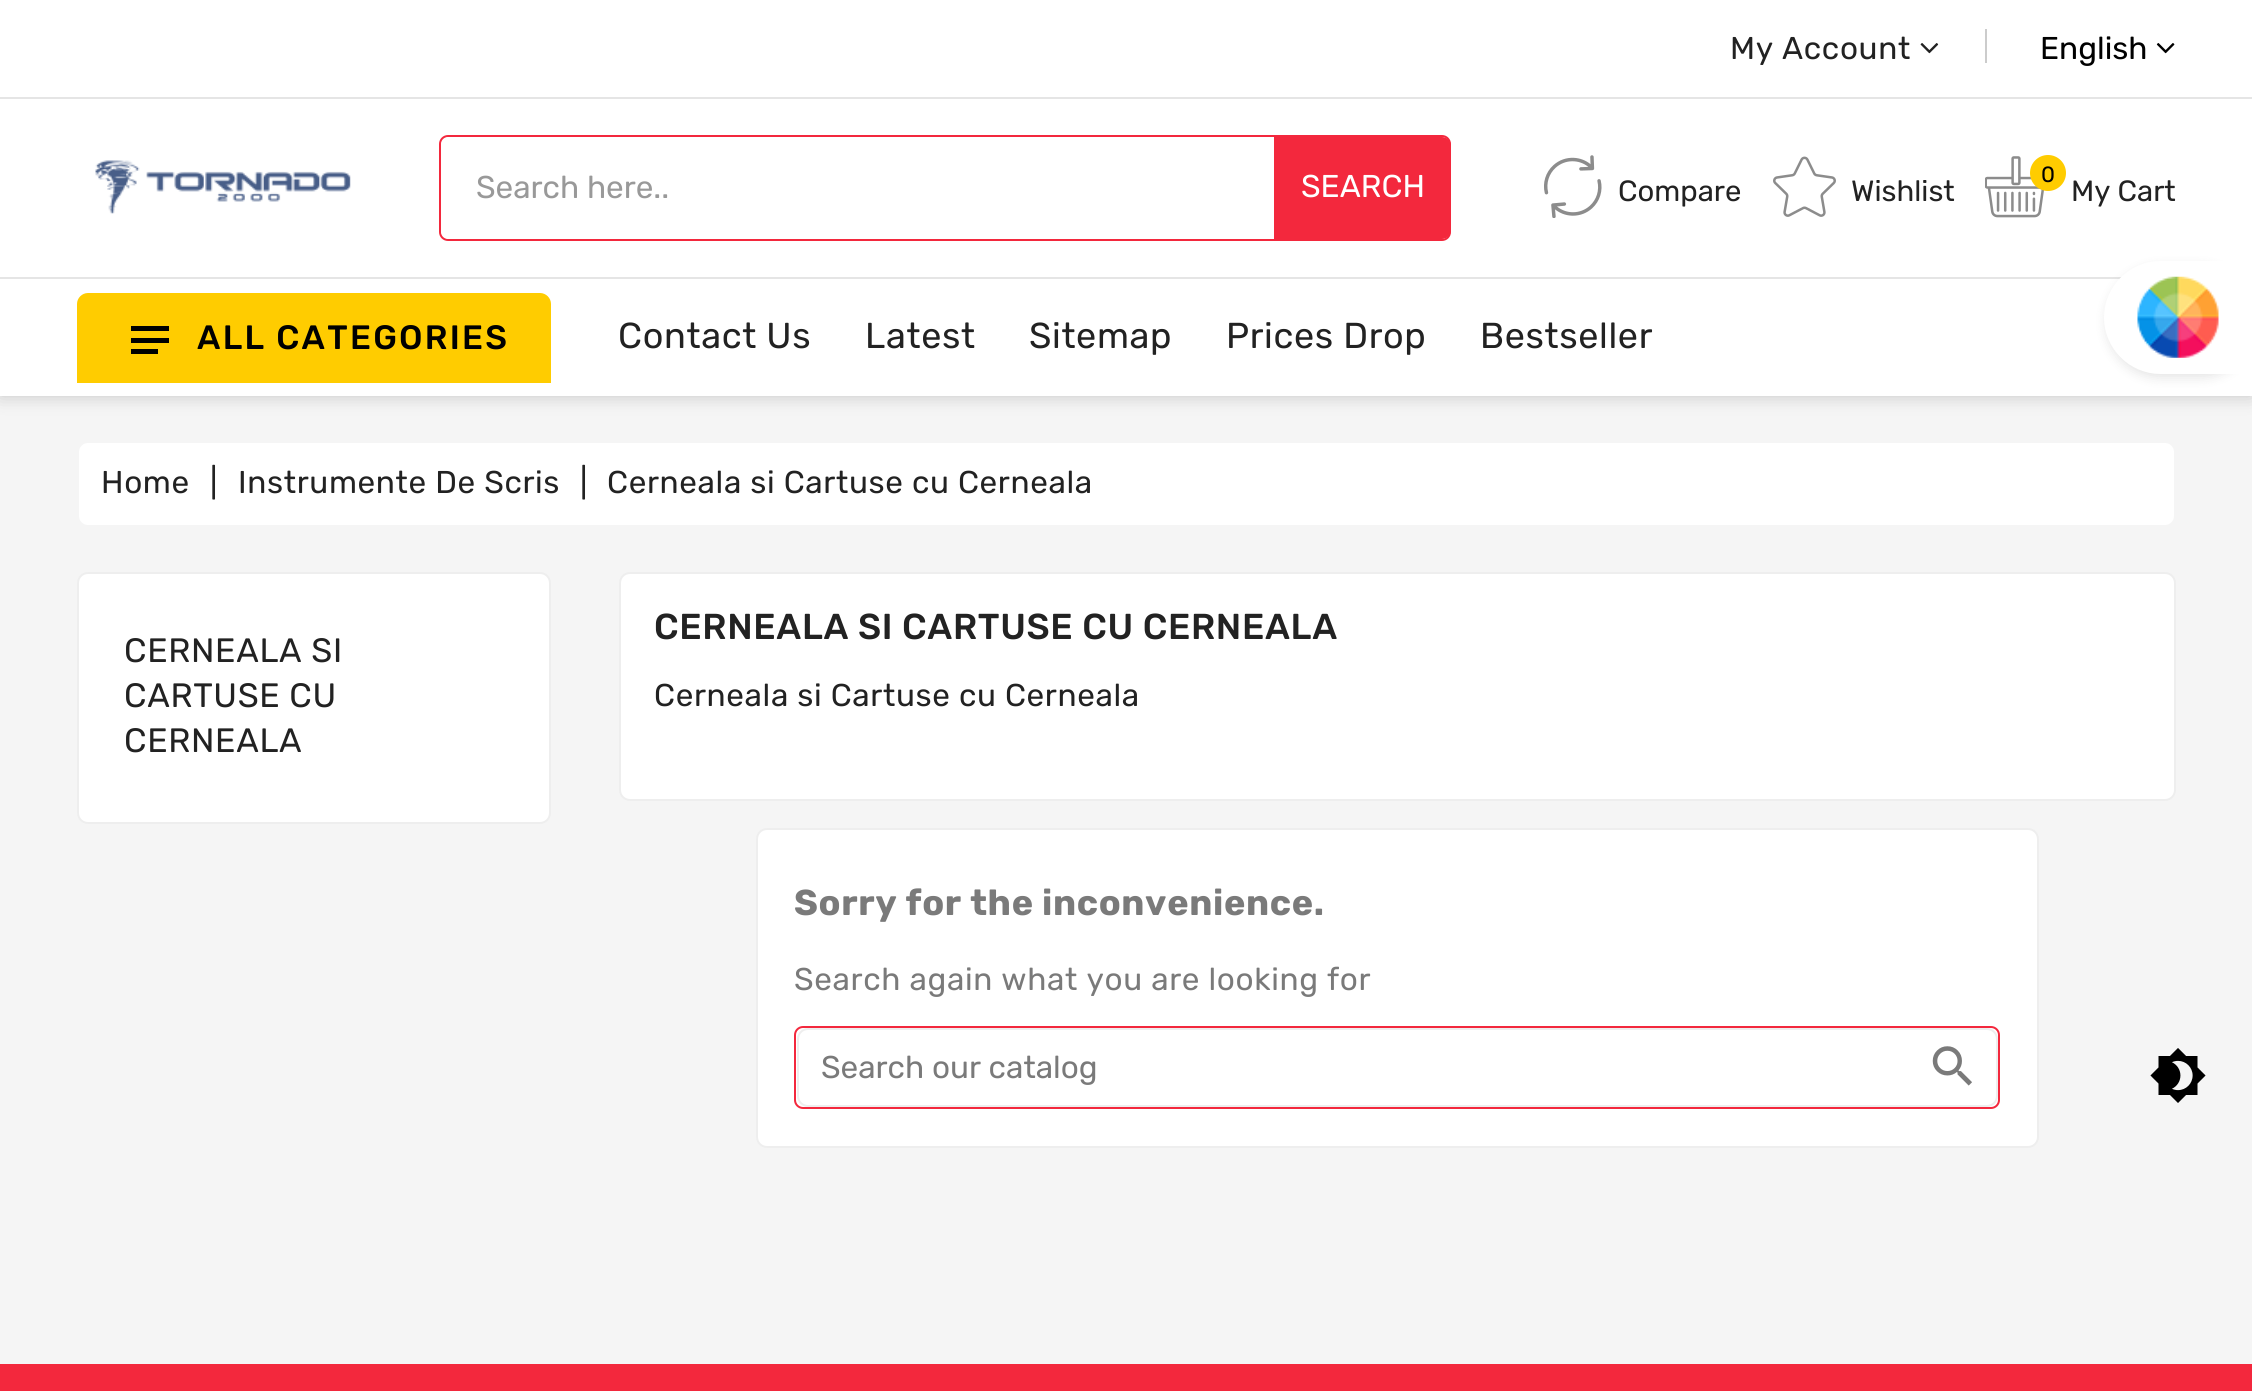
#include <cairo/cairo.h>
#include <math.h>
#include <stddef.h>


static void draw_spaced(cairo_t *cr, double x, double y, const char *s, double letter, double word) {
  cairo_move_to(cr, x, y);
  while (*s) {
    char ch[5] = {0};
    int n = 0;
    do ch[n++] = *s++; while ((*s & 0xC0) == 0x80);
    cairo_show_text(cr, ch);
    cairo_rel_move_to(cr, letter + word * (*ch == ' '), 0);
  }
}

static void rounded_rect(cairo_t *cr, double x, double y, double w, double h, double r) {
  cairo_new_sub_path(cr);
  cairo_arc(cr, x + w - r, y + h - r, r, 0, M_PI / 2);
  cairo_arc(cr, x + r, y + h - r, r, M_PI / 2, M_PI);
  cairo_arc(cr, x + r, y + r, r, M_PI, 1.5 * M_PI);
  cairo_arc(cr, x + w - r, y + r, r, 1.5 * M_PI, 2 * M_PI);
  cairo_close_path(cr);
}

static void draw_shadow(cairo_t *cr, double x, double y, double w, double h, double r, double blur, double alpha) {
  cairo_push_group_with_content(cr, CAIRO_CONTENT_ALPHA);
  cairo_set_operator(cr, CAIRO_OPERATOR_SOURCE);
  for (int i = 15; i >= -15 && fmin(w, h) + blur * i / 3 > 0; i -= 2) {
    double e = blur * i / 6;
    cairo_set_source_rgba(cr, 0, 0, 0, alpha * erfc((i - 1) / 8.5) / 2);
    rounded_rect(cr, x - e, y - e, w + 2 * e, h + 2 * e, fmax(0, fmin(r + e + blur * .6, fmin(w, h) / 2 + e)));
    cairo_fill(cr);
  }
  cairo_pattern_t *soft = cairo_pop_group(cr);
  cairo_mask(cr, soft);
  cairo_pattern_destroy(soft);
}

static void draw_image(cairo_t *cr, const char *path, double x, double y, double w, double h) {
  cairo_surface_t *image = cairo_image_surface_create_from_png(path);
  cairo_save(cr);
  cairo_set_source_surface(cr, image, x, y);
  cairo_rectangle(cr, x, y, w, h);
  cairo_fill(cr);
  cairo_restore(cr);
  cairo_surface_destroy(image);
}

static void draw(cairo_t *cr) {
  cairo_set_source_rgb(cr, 245 / 255.0, 245 / 255.0, 245 / 255.0);
  cairo_paint(cr);
  cairo_set_source_rgb(cr, 0, 0, 0);
  draw_shadow(cr, 0, 0, 2252, 396, 0, 9, 0.2);
  cairo_set_source_rgb(cr, 1, 1, 1);
  cairo_rectangle(cr, 0, 0, 2252, 97);
  cairo_fill(cr);
  cairo_set_source_rgb(cr, 229 / 255.0, 229 / 255.0, 229 / 255.0);
  cairo_rectangle(cr, 0, 97, 2252, 2);
  cairo_fill(cr);
  draw_image(cr, "images/1.png", 1920, 43, 19, 11);
  cairo_set_source_rgb(cr, 204 / 255.0, 204 / 255.0, 204 / 255.0);
  cairo_rectangle(cr, 1985, 29, 2, 34);
  cairo_fill(cr);
  draw_image(cr, "images/2.png", 2156, 43, 19, 11);
  cairo_set_source_rgb(cr, 1, 1, 1);
  cairo_rectangle(cr, 0, 99, 2252, 178);
  cairo_fill(cr);
  draw_image(cr, "images/3.png", 95, 160, 256, 54);
  rounded_rect(cr, 440, 136, 1010, 104, 8);
  cairo_set_source_rgb(cr, 243 / 255.0, 40 / 255.0, 61 / 255.0);
  cairo_stroke(cr);
  cairo_set_source_rgb(cr, 1, 1, 1);
  rounded_rect(cr, 441, 137, 833, 102, 9);
  cairo_fill(cr);
  cairo_set_source_rgb(cr, 243 / 255.0, 40 / 255.0, 61 / 255.0);
  cairo_new_path(cr);
  cairo_move_to(cr, 1274, 137);
  cairo_line_to(cr, 1442, 137);
  cairo_curve_to(cr, 1447, 137, 1451, 141, 1451, 146);
  cairo_line_to(cr, 1451, 230);
  cairo_curve_to(cr, 1451, 235, 1447, 239, 1442, 239);
  cairo_line_to(cr, 1274, 239);
  cairo_close_path(cr);
  cairo_fill(cr);
  draw_image(cr, "images/4.png", 1544, 155, 58, 63);
  draw_image(cr, "images/5.png", 1773, 156, 63, 61);
  draw_image(cr, "images/6.png", 1985, 156, 59, 62);
  cairo_set_source_rgb(cr, 1, 204 / 255.0, 0);
  cairo_arc(cr, 2048, 173, 18, 0, 2 * M_PI);
  cairo_fill(cr);
  cairo_set_source_rgb(cr, 1, 1, 1);
  cairo_rectangle(cr, 0, 279, 2252, 117);
  cairo_fill(cr);
  cairo_set_source_rgb(cr, 229 / 255.0, 229 / 255.0, 229 / 255.0);
  cairo_rectangle(cr, 0, 277, 2122, 2);
  cairo_fill(cr);
  cairo_set_source_rgb(cr, 1, 204 / 255.0, 0);
  cairo_new_path(cr);
  cairo_move_to(cr, 88, 293);
  cairo_line_to(cr, 540, 293);
  cairo_curve_to(cr, 546, 293, 551, 298, 551, 304);
  cairo_line_to(cr, 551, 383);
  cairo_line_to(cr, 77, 383);
  cairo_line_to(cr, 77, 304);
  cairo_curve_to(cr, 77, 298, 82, 293, 88, 293);
  cairo_close_path(cr);
  cairo_fill(cr);
  cairo_set_source_rgb(cr, 0, 0, 0);
  cairo_rectangle(cr, 131, 326, 38, 5);
  cairo_fill(cr);
  cairo_rectangle(cr, 131, 338, 38, 5);
  cairo_fill(cr);
  cairo_rectangle(cr, 131, 349, 27, 5);
  cairo_fill(cr);
  cairo_set_source_rgb(cr, 1, 1, 1);
  rounded_rect(cr, 78, 442, 2097, 84, 10);
  cairo_fill_preserve(cr);
  cairo_set_source_rgb(cr, 245 / 255.0, 245 / 255.0, 245 / 255.0);
  cairo_stroke(cr);
  cairo_set_source_rgb(cr, 1, 1, 1);
  rounded_rect(cr, 78, 573, 472, 250, 10);
  cairo_fill_preserve(cr);
  cairo_set_source_rgb(cr, 238 / 255.0, 238 / 255.0, 238 / 255.0);
  cairo_stroke(cr);
  cairo_set_source_rgb(cr, 1, 1, 1);
  rounded_rect(cr, 620, 573, 1555, 227, 10);
  cairo_fill_preserve(cr);
  cairo_set_source_rgb(cr, 238 / 255.0, 238 / 255.0, 238 / 255.0);
  cairo_stroke(cr);
  cairo_set_source_rgb(cr, 1, 1, 1);
  rounded_rect(cr, 757, 829, 1281, 318, 10);
  cairo_fill_preserve(cr);
  cairo_set_source_rgb(cr, 238 / 255.0, 238 / 255.0, 238 / 255.0);
  cairo_stroke(cr);
  rounded_rect(cr, 795, 1027, 1204, 81, 8);
  cairo_set_source_rgb(cr, 243 / 255.0, 40 / 255.0, 61 / 255.0);
  cairo_stroke(cr);
  rounded_rect(cr, 798, 1029, 1199, 77, 10);
  cairo_set_source_rgb(cr, 238 / 255.0, 238 / 255.0, 238 / 255.0);
  cairo_stroke(cr);
  draw_image(cr, "images/7.png", 1932, 1046, 40, 40);
  cairo_set_source_rgb(cr, 243 / 255.0, 40 / 255.0, 61 / 255.0);
  cairo_rectangle(cr, 0, 1364, 2252, 27);
  cairo_fill(cr);
  cairo_set_source_rgb(cr, 0, 0, 0);
  draw_shadow(cr, 2106, 266, 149, 112, 56, 5.5, 0.1);
  cairo_set_source_rgb(cr, 1, 1, 1);
  cairo_new_path(cr);
  cairo_move_to(cr, 2160.5, 261);
  cairo_line_to(cr, 2252, 261);
  cairo_line_to(cr, 2252, 374);
  cairo_line_to(cr, 2160.5, 374);
  cairo_curve_to(cr, 2129.5, 374, 2104, 348.5, 2104, 317.5);
  cairo_curve_to(cr, 2104, 286.5, 2129.5, 261, 2160.5, 261);
  cairo_close_path(cr);
  cairo_fill(cr);
  draw_image(cr, "images/8.png", 2137, 276, 82, 82);
  draw_image(cr, "images/9.png", 2150, 1048, 56, 55);
  cairo_select_font_face(cr, "Rubik", CAIRO_FONT_SLANT_NORMAL, CAIRO_FONT_WEIGHT_NORMAL);
  cairo_set_font_size(cr, 31.5);
  cairo_set_source_rgb(cr, 34 / 255.0, 34 / 255.0, 34 / 255.0);
  draw_spaced(cr, 1730, 59, "My Account", 0.65, 0);
  cairo_set_source_rgb(cr, 0, 0, 0);
  cairo_move_to(cr, 2040, 59);
  cairo_show_text(cr, "English");
  cairo_set_source_rgb(cr, 153 / 255.0, 153 / 255.0, 153 / 255.0);
  cairo_move_to(cr, 476, 198);
  cairo_show_text(cr, "Search here..");
  cairo_set_source_rgb(cr, 1, 1, 1);
  cairo_move_to(cr, 1301, 197);
  cairo_show_text(cr, "SEARCH");
  cairo_set_font_size(cr, 29.25);
  cairo_set_source_rgb(cr, 34 / 255.0, 34 / 255.0, 34 / 255.0);
  cairo_move_to(cr, 1618, 201);
  cairo_show_text(cr, "Compare");
  cairo_move_to(cr, 1851, 201);
  cairo_show_text(cr, "Wishlist");
  cairo_set_font_size(cr, 22);
  cairo_set_source_rgb(cr, 0, 0, 0);
  draw_spaced(cr, 2041, 182, "0", 0.65, 0);
  cairo_set_font_size(cr, 29.25);
  cairo_set_source_rgb(cr, 34 / 255.0, 34 / 255.0, 34 / 255.0);
  cairo_move_to(cr, 2071, 201);
  cairo_show_text(cr, "My Cart");
  cairo_select_font_face(cr, "Rubik Medium", CAIRO_FONT_SLANT_NORMAL, CAIRO_FONT_WEIGHT_NORMAL);
  cairo_set_font_size(cr, 33.75);
  cairo_set_source_rgb(cr, 0, 0, 0);
  draw_spaced(cr, 197, 349, "ALL CATEGORIES", 2.25, 0);
  cairo_select_font_face(cr, "Rubik", CAIRO_FONT_SLANT_NORMAL, CAIRO_FONT_WEIGHT_NORMAL);
  cairo_set_font_size(cr, 36);
  cairo_set_source_rgb(cr, 34 / 255.0, 34 / 255.0, 34 / 255.0);
  draw_spaced(cr, 618, 348, "Contact Us", 0.65, 0);
  draw_spaced(cr, 865, 348, "Latest", 0.65, 0);
  draw_spaced(cr, 1029, 348, "Sitemap", 0.65, 0);
  draw_spaced(cr, 1226, 348, "Prices Drop", 0.65, 0);
  draw_spaced(cr, 1480, 348, "Bestseller", 0.65, 0);
  cairo_set_font_size(cr, 31.5);
  draw_spaced(cr, 101, 493, "Home", 0.65, 0);
  draw_spaced(cr, 210, 493, "|", 0.65, 0);
  draw_spaced(cr, 238, 493, "Instrumente De Scris", 0.65, 0);
  draw_spaced(cr, 580, 493, "|", 0.65, 0);
  draw_spaced(cr, 607, 493, "Cerneala si Cartuse cu Cerneala", 0.65, 0);
  cairo_set_font_size(cr, 33.75);
  draw_spaced(cr, 124, 662, "CERNEALA SI", 0.65, 0);
  draw_spaced(cr, 124, 707, "CARTUSE CU", 0.65, 0);
  draw_spaced(cr, 124, 752, "CERNEALA", 0.65, 0);
  cairo_select_font_face(cr, "Rubik Medium", CAIRO_FONT_SLANT_NORMAL, CAIRO_FONT_WEIGHT_NORMAL);
  cairo_set_font_size(cr, 36);
  draw_spaced(cr, 654, 639, "CERNEALA SI CARTUSE CU CERNEALA", 0.65, 0);
  cairo_select_font_face(cr, "Rubik", CAIRO_FONT_SLANT_NORMAL, CAIRO_FONT_WEIGHT_NORMAL);
  cairo_set_font_size(cr, 31.5);
  draw_spaced(cr, 654, 706, "Cerneala si Cartuse cu Cerneala", 0.65, 0);
  cairo_select_font_face(cr, "Rubik", CAIRO_FONT_SLANT_NORMAL, CAIRO_FONT_WEIGHT_BOLD);
  cairo_set_font_size(cr, 36);
  cairo_set_source_rgb(cr, 122 / 255.0, 122 / 255.0, 122 / 255.0);
  draw_spaced(cr, 794, 915, "Sorry for the inconvenience.", 0.65, 0);
  cairo_select_font_face(cr, "Rubik", CAIRO_FONT_SLANT_NORMAL, CAIRO_FONT_WEIGHT_NORMAL);
  cairo_set_font_size(cr, 31.5);
  draw_spaced(cr, 794, 990, "Search again what you are looking for", 0.65, 0);
  cairo_move_to(cr, 821, 1078);
  cairo_show_text(cr, "Search our catalog");
}

int main(void) {
  cairo_surface_t *surface = cairo_image_surface_create(CAIRO_FORMAT_RGB24, 2252, 1391);
  cairo_t *cr = cairo_create(surface);
  cairo_font_options_t *options = cairo_font_options_create();
  cairo_font_options_set_hint_metrics(options, CAIRO_HINT_METRICS_OFF);
  cairo_font_options_set_hint_style(options, CAIRO_HINT_STYLE_NONE);
  cairo_set_font_options(cr, options);
  cairo_set_miter_limit(cr, 4);
  draw(cr);
  cairo_surface_write_to_png(surface, "out.png");
  cairo_font_options_destroy(options);
  cairo_destroy(cr);
  cairo_surface_destroy(surface);
  return 0;
}
